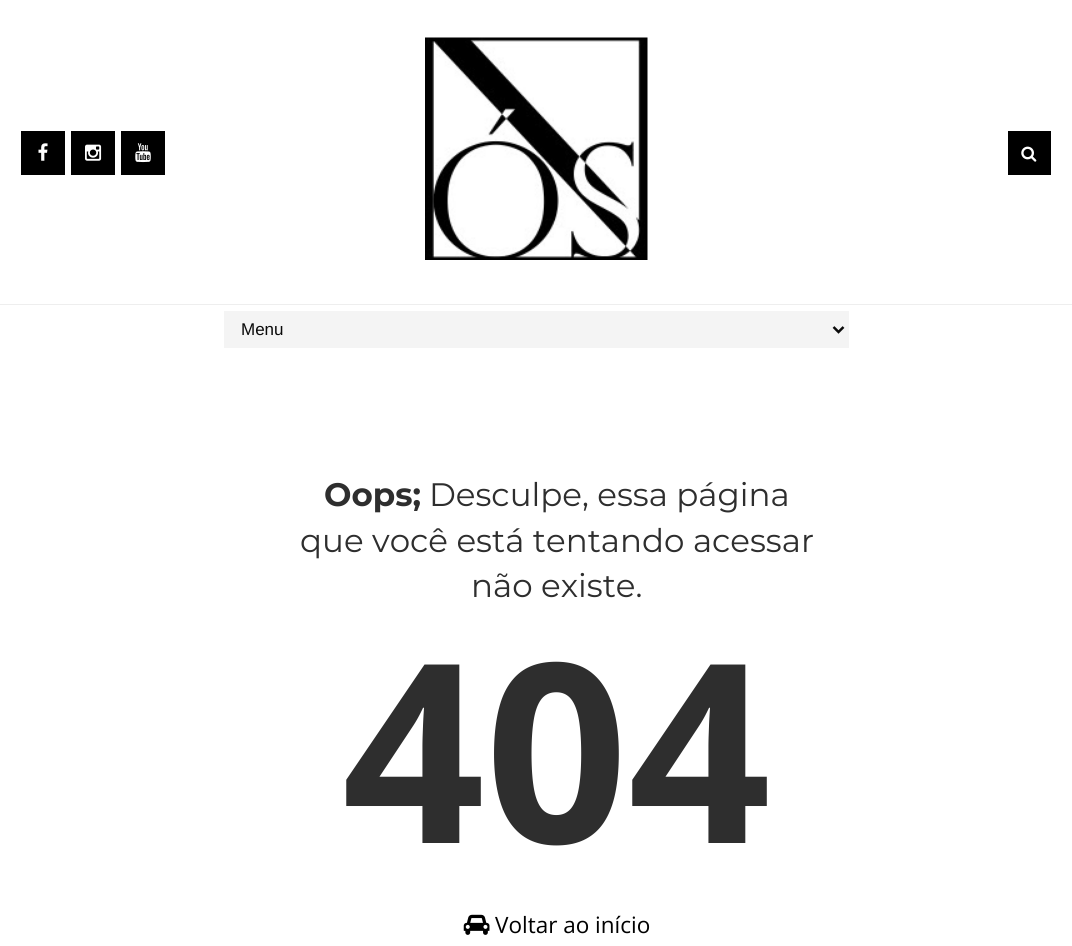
#include <cairo/cairo.h>
#include <math.h>
#include <stddef.h>


static void draw_image(cairo_t *cr, const char *path, double x, double y, double w, double h) {
  cairo_surface_t *image = cairo_image_surface_create_from_png(path);
  cairo_save(cr);
  cairo_set_source_surface(cr, image, x, y);
  cairo_rectangle(cr, x, y, w, h);
  cairo_fill(cr);
  cairo_restore(cr);
  cairo_surface_destroy(image);
}

static void draw(cairo_t *cr) {
  cairo_set_source_rgb(cr, 1, 1, 1);
  cairo_paint(cr);
  cairo_set_source_rgb(cr, 0, 0, 0);
  cairo_rectangle(cr, 21, 131, 44, 44);
  cairo_fill(cr);
  draw_image(cr, "images/1.png", 38, 143, 10, 18);
  cairo_rectangle(cr, 71, 131, 44, 44);
  cairo_fill(cr);
  draw_image(cr, "images/2.png", 85, 144, 17, 17);
  cairo_rectangle(cr, 121, 131, 44, 44);
  cairo_fill(cr);
  draw_image(cr, "images/3.png", 135, 143, 16, 20);
  draw_image(cr, "images/4.png", 425, 37, 223, 223);
  cairo_rectangle(cr, 1008, 131, 43, 44);
  cairo_fill(cr);
  draw_image(cr, "images/5.png", 1021, 146, 16, 16);
  cairo_set_source_rgb(cr, 238 / 255.0, 238 / 255.0, 238 / 255.0);
  cairo_rectangle(cr, 0, 304, 1072, 1);
  cairo_fill(cr);
  cairo_set_source_rgb(cr, 244 / 255.0, 244 / 255.0, 244 / 255.0);
  cairo_rectangle(cr, 224, 311, 625, 37);
  cairo_fill(cr);
  cairo_new_path(cr);
  cairo_move_to(cr, 833.5, 327);
  cairo_line_to(cr, 838.5, 332);
  cairo_line_to(cr, 843.5, 327);
  cairo_set_source_rgb(cr, 10 / 255.0, 10 / 255.0, 10 / 255.0);
  cairo_set_line_width(cr, 2.5);
  cairo_stroke(cr);
  draw_image(cr, "images/6.png", 463, 914, 27, 21);
  cairo_select_font_face(cr, "Liberation Sans", CAIRO_FONT_SLANT_NORMAL, CAIRO_FONT_WEIGHT_NORMAL);
  cairo_set_font_size(cr, 17);
  cairo_move_to(cr, 241, 335);
  cairo_show_text(cr, "Menu");
  cairo_select_font_face(cr, "Montserrat", CAIRO_FONT_SLANT_NORMAL, CAIRO_FONT_WEIGHT_BOLD);
  cairo_set_font_size(cr, 32.5);
  cairo_set_source_rgb(cr, 46 / 255.0, 46 / 255.0, 46 / 255.0);
  cairo_move_to(cr, 324, 506);
  cairo_show_text(cr, "Oops;");
  cairo_select_font_face(cr, "Montserrat", CAIRO_FONT_SLANT_NORMAL, CAIRO_FONT_WEIGHT_NORMAL);
  cairo_move_to(cr, 429, 506);
  cairo_show_text(cr, "Desculpe, essa página");
  cairo_move_to(cr, 300, 552);
  cairo_show_text(cr, "que você está tentando acessar");
  cairo_move_to(cr, 471, 597);
  cairo_show_text(cr, "não existe.");
  cairo_select_font_face(cr, "Open Sans", CAIRO_FONT_SLANT_NORMAL, CAIRO_FONT_WEIGHT_BOLD);
  cairo_set_font_size(cr, 250);
  cairo_move_to(cr, 342, 843);
  cairo_show_text(cr, "404");
  cairo_select_font_face(cr, "Open Sans", CAIRO_FONT_SLANT_NORMAL, CAIRO_FONT_WEIGHT_NORMAL);
  cairo_set_font_size(cr, 22.5);
  cairo_set_source_rgb(cr, 0, 0, 0);
  cairo_move_to(cr, 495, 933);
  cairo_show_text(cr, "Voltar ao início");
}

int main(void) {
  cairo_surface_t *surface = cairo_image_surface_create(CAIRO_FORMAT_RGB24, 1072, 946);
  cairo_t *cr = cairo_create(surface);
  cairo_font_options_t *options = cairo_font_options_create();
  cairo_font_options_set_hint_metrics(options, CAIRO_HINT_METRICS_OFF);
  cairo_font_options_set_hint_style(options, CAIRO_HINT_STYLE_NONE);
  cairo_set_font_options(cr, options);
  cairo_set_miter_limit(cr, 4);
  draw(cr);
  cairo_surface_write_to_png(surface, "out.png");
  cairo_font_options_destroy(options);
  cairo_destroy(cr);
  cairo_surface_destroy(surface);
  return 0;
}
